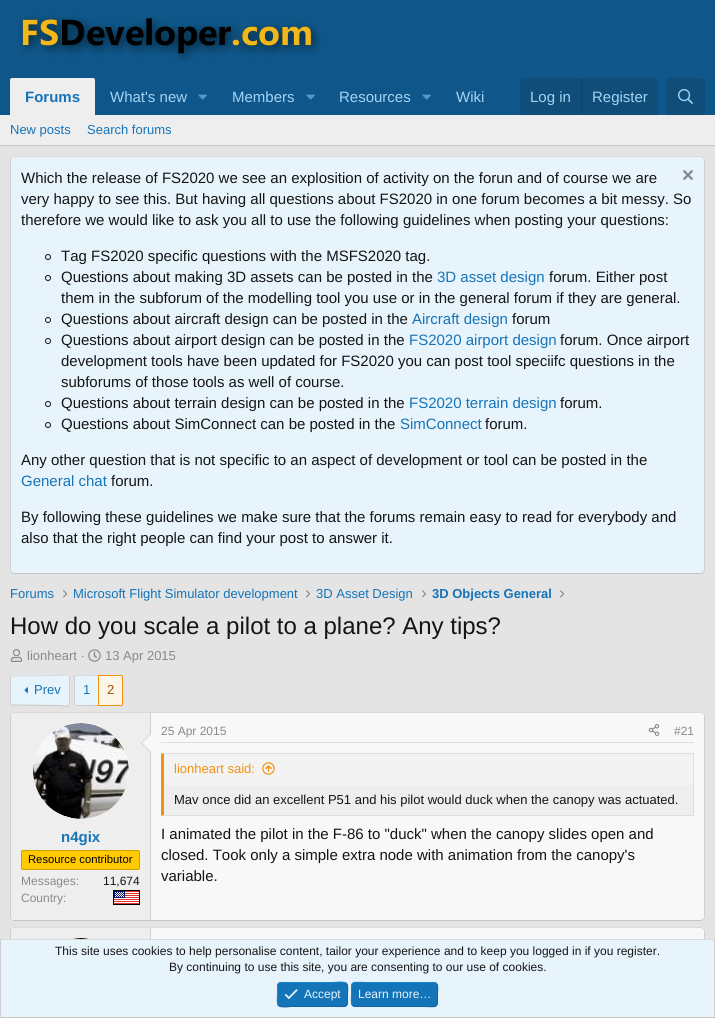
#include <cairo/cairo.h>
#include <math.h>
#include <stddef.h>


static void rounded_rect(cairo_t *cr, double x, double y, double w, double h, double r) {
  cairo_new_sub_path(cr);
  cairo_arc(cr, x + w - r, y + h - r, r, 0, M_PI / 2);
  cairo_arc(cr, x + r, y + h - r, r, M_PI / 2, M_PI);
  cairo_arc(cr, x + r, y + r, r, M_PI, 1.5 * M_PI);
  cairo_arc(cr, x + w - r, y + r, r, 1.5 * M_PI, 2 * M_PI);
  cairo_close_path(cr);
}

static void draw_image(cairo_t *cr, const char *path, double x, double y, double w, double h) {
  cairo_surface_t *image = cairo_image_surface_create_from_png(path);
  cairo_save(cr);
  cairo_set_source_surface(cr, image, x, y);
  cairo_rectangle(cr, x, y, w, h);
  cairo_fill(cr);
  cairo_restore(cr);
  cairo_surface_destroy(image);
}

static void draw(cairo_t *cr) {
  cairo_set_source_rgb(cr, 228 / 255.0, 228 / 255.0, 228 / 255.0);
  cairo_paint(cr);
  cairo_set_source_rgb(cr, 15 / 255.0, 87 / 255.0, 138 / 255.0);
  cairo_rectangle(cr, 0, 0, 715, 115);
  cairo_fill(cr);
  draw_image(cr, "images/1.png", 18, 15, 303, 47);
  cairo_set_source_rgb(cr, 238 / 255.0, 238 / 255.0, 238 / 255.0);
  cairo_new_path(cr);
  cairo_move_to(cr, 12, 78);
  cairo_line_to(cr, 93, 78);
  cairo_curve_to(cr, 94, 78, 95, 79, 95, 80);
  cairo_line_to(cr, 95, 115);
  cairo_line_to(cr, 10, 115);
  cairo_line_to(cr, 10, 80);
  cairo_curve_to(cr, 10, 79, 11, 78, 12, 78);
  cairo_close_path(cr);
  cairo_fill(cr);
  draw_image(cr, "images/2.png", 198, 94, 9, 6);
  draw_image(cr, "images/2.png", 306, 94, 9, 6);
  draw_image(cr, "images/2.png", 422, 94, 9, 6);
  cairo_set_source_rgb(cr, 16 / 255.0, 77 / 255.0, 120 / 255.0);
  cairo_new_path(cr);
  cairo_move_to(cr, 524, 78);
  cairo_line_to(cr, 654, 78);
  cairo_curve_to(cr, 656, 78, 658, 80, 658, 82);
  cairo_line_to(cr, 658, 115);
  cairo_line_to(cr, 520, 115);
  cairo_line_to(cr, 520, 82);
  cairo_curve_to(cr, 520, 80, 522, 78, 524, 78);
  cairo_close_path(cr);
  cairo_fill(cr);
  cairo_set_source_rgb(cr, 17 / 255.0, 68 / 255.0, 105 / 255.0);
  cairo_rectangle(cr, 581, 78, 1, 37);
  cairo_fill(cr);
  cairo_set_source_rgb(cr, 16 / 255.0, 77 / 255.0, 120 / 255.0);
  cairo_new_path(cr);
  cairo_move_to(cr, 670, 78);
  cairo_line_to(cr, 701, 78);
  cairo_curve_to(cr, 703, 78, 705, 80, 705, 82);
  cairo_line_to(cr, 705, 115);
  cairo_line_to(cr, 666, 115);
  cairo_line_to(cr, 666, 82);
  cairo_curve_to(cr, 666, 80, 668, 78, 670, 78);
  cairo_close_path(cr);
  cairo_fill(cr);
  draw_image(cr, "images/3.png", 678, 89, 15, 15);
  cairo_set_source_rgb(cr, 238 / 255.0, 238 / 255.0, 238 / 255.0);
  cairo_rectangle(cr, 0, 115, 715, 30);
  cairo_fill(cr);
  cairo_set_source_rgb(cr, 197 / 255.0, 197 / 255.0, 197 / 255.0);
  cairo_rectangle(cr, 0, 145, 715, 1);
  cairo_fill(cr);
  cairo_set_source_rgb(cr, 232 / 255.0, 244 / 255.0, 252 / 255.0);
  rounded_rect(cr, 10, 156, 695, 418, 4);
  cairo_fill(cr);
  cairo_new_path(cr);
  cairo_move_to(cr, 11.5, 157.5);
  cairo_line_to(cr, 14, 156.5);
  cairo_line_to(cr, 701, 156.5);
  cairo_line_to(cr, 703.5, 157.5);
  cairo_set_source_rgb(cr, 217 / 255.0, 217 / 255.0, 217 / 255.0);
  cairo_set_line_width(cr, 1);
  cairo_stroke(cr);
  cairo_new_path(cr);
  cairo_move_to(cr, 703.5, 157.5);
  cairo_line_to(cr, 704.5, 160);
  cairo_line_to(cr, 704.5, 570);
  cairo_line_to(cr, 703.5, 572.5);
  cairo_set_source_rgb(cr, 207 / 255.0, 207 / 255.0, 207 / 255.0);
  cairo_stroke(cr);
  cairo_new_path(cr);
  cairo_move_to(cr, 703.5, 572.5);
  cairo_line_to(cr, 701, 573.5);
  cairo_line_to(cr, 14, 573.5);
  cairo_line_to(cr, 11.5, 572.5);
  cairo_set_source_rgb(cr, 197 / 255.0, 197 / 255.0, 197 / 255.0);
  cairo_stroke(cr);
  cairo_new_path(cr);
  cairo_move_to(cr, 11.5, 572.5);
  cairo_line_to(cr, 10.5, 570);
  cairo_line_to(cr, 10.5, 160);
  cairo_line_to(cr, 11.5, 157.5);
  cairo_set_source_rgb(cr, 207 / 255.0, 207 / 255.0, 207 / 255.0);
  cairo_stroke(cr);
  draw_image(cr, "images/4.png", 683, 170, 10, 10);
  cairo_arc(cr, 48, 257, 2.5, 0, 2 * M_PI);
  cairo_set_source_rgb(cr, 20 / 255.0, 20 / 255.0, 20 / 255.0);
  cairo_stroke(cr);
  cairo_arc(cr, 48, 278, 2.5, 0, 2 * M_PI);
  cairo_stroke(cr);
  cairo_arc(cr, 48, 320, 2.5, 0, 2 * M_PI);
  cairo_stroke(cr);
  cairo_arc(cr, 48, 341, 2.5, 0, 2 * M_PI);
  cairo_stroke(cr);
  cairo_arc(cr, 48, 404, 2.5, 0, 2 * M_PI);
  cairo_stroke(cr);
  cairo_arc(cr, 48, 425, 2.5, 0, 2 * M_PI);
  cairo_stroke(cr);
  draw_image(cr, "images/5.png", 63, 590, 4, 8);
  draw_image(cr, "images/6.png", 306, 590, 5, 8);
  draw_image(cr, "images/5.png", 422, 590, 4, 8);
  draw_image(cr, "images/6.png", 560, 590, 5, 8);
  draw_image(cr, "images/7.png", 10, 649, 13, 13);
  draw_image(cr, "images/8.png", 88, 649, 13, 13);
  cairo_set_source_rgb(cr, 232 / 255.0, 244 / 255.0, 252 / 255.0);
  rounded_rect(cr, 10, 675, 60, 31, 2);
  cairo_fill(cr);
  cairo_new_path(cr);
  cairo_move_to(cr, 11, 676);
  cairo_line_to(cr, 58.5, 675.5);
  cairo_curve_to(cr, 62, 675.5, 66.5, 673.5, 69, 676);
  cairo_set_source_rgb(cr, 217 / 255.0, 217 / 255.0, 217 / 255.0);
  cairo_stroke(cr);
  cairo_new_path(cr);
  cairo_move_to(cr, 69, 676);
  cairo_line_to(cr, 69.5, 677);
  cairo_line_to(cr, 69.5, 704);
  cairo_line_to(cr, 69, 705);
  cairo_set_source_rgb(cr, 207 / 255.0, 207 / 255.0, 207 / 255.0);
  cairo_stroke(cr);
  cairo_new_path(cr);
  cairo_move_to(cr, 69, 705);
  cairo_curve_to(cr, 66.5, 707.5, 62, 705.5, 58.5, 705.5);
  cairo_line_to(cr, 11, 705);
  cairo_set_source_rgb(cr, 197 / 255.0, 197 / 255.0, 197 / 255.0);
  cairo_stroke(cr);
  cairo_new_path(cr);
  cairo_move_to(cr, 11, 705);
  cairo_line_to(cr, 10.5, 704);
  cairo_line_to(cr, 10.5, 677);
  cairo_line_to(cr, 11, 676);
  cairo_set_source_rgb(cr, 207 / 255.0, 207 / 255.0, 207 / 255.0);
  cairo_stroke(cr);
  draw_image(cr, "images/9.png", 24, 687, 4, 7);
  cairo_set_source_rgb(cr, 232 / 255.0, 244 / 255.0, 252 / 255.0);
  cairo_new_path(cr);
  cairo_move_to(cr, 76, 675);
  cairo_line_to(cr, 98, 675);
  cairo_line_to(cr, 98, 706);
  cairo_line_to(cr, 76, 706);
  cairo_curve_to(cr, 75, 706, 74, 705, 74, 704);
  cairo_line_to(cr, 74, 677);
  cairo_curve_to(cr, 74, 676, 75, 675, 76, 675);
  cairo_close_path(cr);
  cairo_fill(cr);
  cairo_set_source_rgb(cr, 217 / 255.0, 217 / 255.0, 217 / 255.0);
  cairo_new_path(cr);
  cairo_move_to(cr, 76, 675);
  cairo_line_to(cr, 74.5, 675.5);
  cairo_line_to(cr, 75.5, 676.5);
  cairo_curve_to(cr, 76, 675.5, 95.5, 676, 98, 676);
  cairo_line_to(cr, 98, 675);
  cairo_close_path(cr);
  cairo_fill(cr);
  cairo_set_source_rgb(cr, 197 / 255.0, 197 / 255.0, 197 / 255.0);
  cairo_new_path(cr);
  cairo_move_to(cr, 98, 706);
  cairo_curve_to(cr, 95, 706, 76, 706.5, 75, 705);
  cairo_line_to(cr, 75.5, 704.5);
  cairo_curve_to(cr, 76, 705.5, 95.5, 705, 98, 705);
  cairo_close_path(cr);
  cairo_fill(cr);
  cairo_set_source_rgb(cr, 207 / 255.0, 207 / 255.0, 207 / 255.0);
  cairo_new_path(cr);
  cairo_move_to(cr, 74, 676.5);
  cairo_line_to(cr, 74, 704.5);
  cairo_line_to(cr, 75, 705);
  cairo_line_to(cr, 75.5, 704.5);
  cairo_line_to(cr, 75, 704);
  cairo_line_to(cr, 75, 677);
  cairo_line_to(cr, 75.5, 676.5);
  cairo_line_to(cr, 74.5, 675.5);
  cairo_close_path(cr);
  cairo_fill(cr);
  cairo_set_source_rgb(cr, 254 / 255.0, 244 / 255.0, 231 / 255.0);
  cairo_new_path(cr);
  cairo_move_to(cr, 98.5, 675.5);
  cairo_line_to(cr, 121, 675.5);
  cairo_curve_to(cr, 122, 675.5, 122.5, 676, 122.5, 677);
  cairo_line_to(cr, 122.5, 704);
  cairo_curve_to(cr, 122.5, 705, 122, 705.5, 121, 705.5);
  cairo_line_to(cr, 98.5, 705.5);
  cairo_close_path(cr);
  cairo_fill_preserve(cr);
  cairo_set_source_rgb(cr, 242 / 255.0, 147 / 255.0, 13 / 255.0);
  cairo_stroke(cr);
  cairo_set_source_rgb(cr, 248 / 255.0, 248 / 255.0, 248 / 255.0);
  rounded_rect(cr, 10, 712, 695, 209, 4);
  cairo_fill(cr);
  cairo_new_path(cr);
  cairo_move_to(cr, 11.5, 713.5);
  cairo_line_to(cr, 14, 712.5);
  cairo_line_to(cr, 701, 712.5);
  cairo_line_to(cr, 703.5, 713.5);
  cairo_set_source_rgb(cr, 217 / 255.0, 217 / 255.0, 217 / 255.0);
  cairo_stroke(cr);
  cairo_new_path(cr);
  cairo_move_to(cr, 703.5, 713.5);
  cairo_curve_to(cr, 704, 714, 704.5, 715, 704.5, 716);
  cairo_line_to(cr, 704.5, 917);
  cairo_curve_to(cr, 704.5, 918, 704, 919, 703.5, 919.5);
  cairo_set_source_rgb(cr, 207 / 255.0, 207 / 255.0, 207 / 255.0);
  cairo_stroke(cr);
  cairo_new_path(cr);
  cairo_move_to(cr, 703.5, 919.5);
  cairo_line_to(cr, 701, 920.5);
  cairo_line_to(cr, 14, 920.5);
  cairo_line_to(cr, 11.5, 919.5);
  cairo_set_source_rgb(cr, 197 / 255.0, 197 / 255.0, 197 / 255.0);
  cairo_stroke(cr);
  cairo_new_path(cr);
  cairo_move_to(cr, 11.5, 919.5);
  cairo_curve_to(cr, 11, 919, 10.5, 918, 10.5, 917);
  cairo_line_to(cr, 10.5, 716);
  cairo_curve_to(cr, 10.5, 715, 11, 714, 11.5, 713.5);
  cairo_set_source_rgb(cr, 207 / 255.0, 207 / 255.0, 207 / 255.0);
  cairo_stroke(cr);
  cairo_set_source_rgb(cr, 238 / 255.0, 238 / 255.0, 238 / 255.0);
  cairo_new_path(cr);
  cairo_move_to(cr, 14, 713);
  cairo_line_to(cr, 151, 713);
  cairo_line_to(cr, 151, 920);
  cairo_line_to(cr, 14, 920);
  cairo_curve_to(cr, 12.5, 920, 11, 918.5, 11, 917);
  cairo_line_to(cr, 11, 716);
  cairo_curve_to(cr, 11, 714.5, 12.5, 713, 14, 713);
  cairo_close_path(cr);
  cairo_fill(cr);
  cairo_set_source_rgb(cr, 207 / 255.0, 207 / 255.0, 207 / 255.0);
  cairo_rectangle(cr, 150, 713, 1, 207);
  cairo_fill(cr);
  cairo_set_source_rgb(cr, 248 / 255.0, 248 / 255.0, 248 / 255.0);
  cairo_arc(cr, 81, 771, 48, 0, 2 * M_PI);
  cairo_fill(cr);
  draw_image(cr, "images/10.png", 33, 723, 96, 96);
  cairo_set_source_rgb(cr, 207 / 255.0, 207 / 255.0, 207 / 255.0);
  cairo_new_path(cr);
  cairo_move_to(cr, 151, 733);
  cairo_line_to(cr, 151, 753);
  cairo_line_to(cr, 141, 743);
  cairo_close_path(cr);
  cairo_fill(cr);
  cairo_set_source_rgb(cr, 248 / 255.0, 248 / 255.0, 248 / 255.0);
  cairo_new_path(cr);
  cairo_move_to(cr, 151, 734);
  cairo_line_to(cr, 151, 752);
  cairo_line_to(cr, 142, 743);
  cairo_close_path(cr);
  cairo_fill(cr);
  cairo_set_source_rgb(cr, 1, 203 / 255.0, 0);
  rounded_rect(cr, 21.5, 850.5, 118, 19, 1.5);
  cairo_fill_preserve(cr);
  cairo_set_source_rgb(cr, 204 / 255.0, 162 / 255.0, 0);
  cairo_stroke(cr);
  draw_image(cr, "images/11.png", 113, 890, 27, 15);
  cairo_set_source_rgb(cr, 223 / 255.0, 223 / 255.0, 223 / 255.0);
  cairo_rectangle(cr, 161, 742, 533, 1);
  cairo_fill(cr);
  draw_image(cr, "images/12.png", 648, 724, 12, 12);
  cairo_set_source_rgb(cr, 238 / 255.0, 238 / 255.0, 238 / 255.0);
  cairo_rectangle(cr, 164, 785, 529, 30);
  cairo_fill(cr);
  cairo_set_source_rgb(cr, 223 / 255.0, 223 / 255.0, 223 / 255.0);
  cairo_new_path(cr);
  cairo_move_to(cr, 161, 753);
  cairo_line_to(cr, 694, 753);
  cairo_line_to(cr, 693, 754);
  cairo_line_to(cr, 164, 754);
  cairo_close_path(cr);
  cairo_fill(cr);
  cairo_rectangle(cr, 693, 753, 1, 63);
  cairo_fill(cr);
  cairo_new_path(cr);
  cairo_move_to(cr, 694, 816);
  cairo_line_to(cr, 161, 816);
  cairo_line_to(cr, 164, 815);
  cairo_line_to(cr, 693, 815);
  cairo_close_path(cr);
  cairo_fill(cr);
  cairo_set_source_rgb(cr, 242 / 255.0, 147 / 255.0, 13 / 255.0);
  cairo_new_path(cr);
  cairo_move_to(cr, 161, 816);
  cairo_line_to(cr, 161, 753);
  cairo_line_to(cr, 164, 754);
  cairo_line_to(cr, 164, 815);
  cairo_close_path(cr);
  cairo_fill(cr);
  cairo_set_source_rgb(cr, 243 / 255.0, 243 / 255.0, 243 / 255.0);
  cairo_rectangle(cr, 164, 754, 529, 31);
  cairo_fill(cr);
  draw_image(cr, "images/13.png", 262, 762, 13, 13);
  cairo_set_source_rgb(cr, 248 / 255.0, 248 / 255.0, 248 / 255.0);
  rounded_rect(cr, 10, 927, 695, 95, 4);
  cairo_fill(cr);
  cairo_new_path(cr);
  cairo_move_to(cr, 11.5, 928.5);
  cairo_line_to(cr, 14, 927.5);
  cairo_line_to(cr, 701, 927.5);
  cairo_line_to(cr, 703.5, 928.5);
  cairo_set_source_rgb(cr, 217 / 255.0, 217 / 255.0, 217 / 255.0);
  cairo_stroke(cr);
  cairo_new_path(cr);
  cairo_move_to(cr, 703.5, 928.5);
  cairo_line_to(cr, 704.5, 930.5);
  cairo_line_to(cr, 704.5, 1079.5);
  cairo_line_to(cr, 704.5, 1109);
  cairo_line_to(cr, 703.5, 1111.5);
  cairo_set_source_rgb(cr, 207 / 255.0, 207 / 255.0, 207 / 255.0);
  cairo_stroke(cr);
  cairo_new_path(cr);
  cairo_move_to(cr, 11.5, 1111.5);
  cairo_line_to(cr, 10.5, 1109);
  cairo_line_to(cr, 10.5, 930.5);
  cairo_line_to(cr, 11.5, 928.5);
  cairo_stroke(cr);
  cairo_set_source_rgb(cr, 238 / 255.0, 238 / 255.0, 238 / 255.0);
  cairo_new_path(cr);
  cairo_move_to(cr, 14, 928);
  cairo_line_to(cr, 151, 928);
  cairo_line_to(cr, 151, 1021);
  cairo_line_to(cr, 14, 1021);
  cairo_curve_to(cr, 12.5, 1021, 11, 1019.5, 11, 1018);
  cairo_line_to(cr, 11, 931);
  cairo_curve_to(cr, 11, 929.5, 12.5, 928, 14, 928);
  cairo_close_path(cr);
  cairo_fill(cr);
  cairo_set_source_rgb(cr, 207 / 255.0, 207 / 255.0, 207 / 255.0);
  cairo_rectangle(cr, 150, 928, 1, 11);
  cairo_fill(cr);
  cairo_set_source_rgb(cr, 248 / 255.0, 248 / 255.0, 248 / 255.0);
  cairo_arc(cr, 81, 986, 48, 0, 2 * M_PI);
  cairo_fill(cr);
  draw_image(cr, "images/14.png", 73, 938, 16, 1);
  cairo_set_source_rgb(cr, 232 / 255.0, 244 / 255.0, 252 / 255.0);
  cairo_rectangle(cr, 1, 940, 713, 77);
  cairo_fill(cr);
  cairo_set_source_rgb(cr, 217 / 255.0, 217 / 255.0, 217 / 255.0);
  cairo_rectangle(cr, 0, 939, 715, 1);
  cairo_fill(cr);
  cairo_set_source_rgb(cr, 207 / 255.0, 207 / 255.0, 207 / 255.0);
  cairo_rectangle(cr, 714, 939, 1, 79);
  cairo_fill(cr);
  cairo_set_source_rgb(cr, 197 / 255.0, 197 / 255.0, 197 / 255.0);
  cairo_rectangle(cr, 0, 1017, 715, 1);
  cairo_fill(cr);
  cairo_set_source_rgb(cr, 207 / 255.0, 207 / 255.0, 207 / 255.0);
  cairo_rectangle(cr, 0, 939, 1, 79);
  cairo_fill(cr);
  cairo_set_source_rgb(cr, 20 / 255.0, 116 / 255.0, 184 / 255.0);
  rounded_rect(cr, 277, 982, 71, 25, 4);
  cairo_fill(cr);
  cairo_new_path(cr);
  cairo_move_to(cr, 346.5, 983.5);
  cairo_curve_to(cr, 348.5, 986, 347.5, 992, 347.5, 994.5);
  cairo_curve_to(cr, 347.5, 1008.5, 348.5, 1006.5, 333.5, 1006.5);
  cairo_line_to(cr, 291.5, 1006.5);
  cairo_curve_to(cr, 290.5, 1006.5, 281, 1008, 278.5, 1005.5);
  cairo_set_source_rgb(cr, 18 / 255.0, 101 / 255.0, 161 / 255.0);
  cairo_stroke(cr);
  cairo_new_path(cr);
  cairo_move_to(cr, 278.5, 1005.5);
  cairo_curve_to(cr, 276.5, 1003, 277.5, 997, 277.5, 994.5);
  cairo_curve_to(cr, 277.5, 980.5, 276.5, 982.5, 291.5, 982.5);
  cairo_line_to(cr, 333.5, 982.5);
  cairo_curve_to(cr, 334.5, 982.5, 344, 981, 346.5, 983.5);
  cairo_set_source_rgb(cr, 23 / 255.0, 130 / 255.0, 207 / 255.0);
  cairo_stroke(cr);
  draw_image(cr, "images/15.png", 284, 989, 14, 11);
  cairo_set_source_rgb(cr, 20 / 255.0, 116 / 255.0, 184 / 255.0);
  rounded_rect(cr, 351, 982, 87, 25, 4);
  cairo_fill(cr);
  cairo_new_path(cr);
  cairo_move_to(cr, 436.5, 983.5);
  cairo_curve_to(cr, 438.5, 986, 437.5, 992, 437.5, 994.5);
  cairo_curve_to(cr, 437.5, 1009.5, 438, 1006.5, 421, 1006.5);
  cairo_line_to(cr, 355, 1006.5);
  cairo_line_to(cr, 352.5, 1005.5);
  cairo_set_source_rgb(cr, 18 / 255.0, 101 / 255.0, 161 / 255.0);
  cairo_stroke(cr);
  cairo_new_path(cr);
  cairo_move_to(cr, 352.5, 1005.5);
  cairo_curve_to(cr, 350.5, 1003, 351.5, 997, 351.5, 994.5);
  cairo_curve_to(cr, 351.5, 979.5, 351, 982.5, 368, 982.5);
  cairo_line_to(cr, 434, 982.5);
  cairo_line_to(cr, 436.5, 983.5);
  cairo_set_source_rgb(cr, 23 / 255.0, 130 / 255.0, 207 / 255.0);
  cairo_stroke(cr);
  cairo_select_font_face(cr, "Liberation Sans", CAIRO_FONT_SLANT_NORMAL, CAIRO_FONT_WEIGHT_BOLD);
  cairo_set_font_size(cr, 15);
  cairo_set_source_rgb(cr, 20 / 255.0, 116 / 255.0, 184 / 255.0);
  cairo_move_to(cr, 25, 102);
  cairo_show_text(cr, "Forums");
  cairo_select_font_face(cr, "Liberation Sans", CAIRO_FONT_SLANT_NORMAL, CAIRO_FONT_WEIGHT_NORMAL);
  cairo_set_source_rgb(cr, 163 / 255.0, 212 / 255.0, 245 / 255.0);
  cairo_move_to(cr, 110, 102);
  cairo_show_text(cr, "What's new");
  cairo_move_to(cr, 232, 102);
  cairo_show_text(cr, "Members");
  cairo_move_to(cr, 339, 102);
  cairo_show_text(cr, "Resources");
  cairo_move_to(cr, 456, 102);
  cairo_show_text(cr, "Wiki");
  cairo_move_to(cr, 530, 102);
  cairo_show_text(cr, "Log in");
  cairo_move_to(cr, 592, 102);
  cairo_show_text(cr, "Register");
  cairo_set_font_size(cr, 13);
  cairo_set_source_rgb(cr, 20 / 255.0, 116 / 255.0, 184 / 255.0);
  cairo_move_to(cr, 10, 134);
  cairo_show_text(cr, "New posts");
  cairo_move_to(cr, 87, 134);
  cairo_show_text(cr, "Search forums");
  cairo_set_font_size(cr, 15);
  cairo_set_source_rgb(cr, 20 / 255.0, 20 / 255.0, 20 / 255.0);
  cairo_move_to(cr, 21, 183);
  cairo_show_text(cr, "Which the release of FS2020 we see an explosition of activity on the forun and of course we are");
  cairo_move_to(cr, 21, 204);
  cairo_show_text(cr, "very happy to see this. But having all questions about FS2020 in one forum becomes a bit messy. So");
  cairo_move_to(cr, 21, 225);
  cairo_show_text(cr, "therefore we would like to ask you all to use the following guidelines when posting your questions:");
  cairo_move_to(cr, 61, 261);
  cairo_show_text(cr, "Tag FS2020 specific questions with the MSFS2020 tag.");
  cairo_move_to(cr, 61, 282);
  cairo_show_text(cr, "Questions about making 3D assets can be posted in the");
  cairo_set_source_rgb(cr, 20 / 255.0, 116 / 255.0, 184 / 255.0);
  cairo_move_to(cr, 437, 282);
  cairo_show_text(cr, "3D asset design");
  cairo_set_source_rgb(cr, 20 / 255.0, 20 / 255.0, 20 / 255.0);
  cairo_move_to(cr, 549, 282);
  cairo_show_text(cr, "forum. Either post");
  cairo_move_to(cr, 61, 303);
  cairo_show_text(cr, "them in the subforum of the modelling tool you use or in the general forum if they are general.");
  cairo_move_to(cr, 61, 324);
  cairo_show_text(cr, "Questions about aircraft design can be posted in the");
  cairo_set_source_rgb(cr, 20 / 255.0, 116 / 255.0, 184 / 255.0);
  cairo_move_to(cr, 412, 324);
  cairo_show_text(cr, "Aircraft design");
  cairo_set_source_rgb(cr, 20 / 255.0, 20 / 255.0, 20 / 255.0);
  cairo_move_to(cr, 512, 324);
  cairo_show_text(cr, "forum");
  cairo_move_to(cr, 61, 345);
  cairo_show_text(cr, "Questions about airport design can be posted in the");
  cairo_set_source_rgb(cr, 20 / 255.0, 116 / 255.0, 184 / 255.0);
  cairo_move_to(cr, 409, 345);
  cairo_show_text(cr, "FS2020 airport design");
  cairo_set_source_rgb(cr, 20 / 255.0, 20 / 255.0, 20 / 255.0);
  cairo_move_to(cr, 560, 345);
  cairo_show_text(cr, "forum. Once airport");
  cairo_move_to(cr, 61, 366);
  cairo_show_text(cr, "development tools have been updated for FS2020 you can post tool speciifc questions in the");
  cairo_move_to(cr, 61, 387);
  cairo_show_text(cr, "subforums of those tools as well of course.");
  cairo_move_to(cr, 61, 408);
  cairo_show_text(cr, "Questions about terrain design can be posted in the");
  cairo_set_source_rgb(cr, 20 / 255.0, 116 / 255.0, 184 / 255.0);
  cairo_move_to(cr, 409, 408);
  cairo_show_text(cr, "FS2020 terrain design");
  cairo_set_source_rgb(cr, 20 / 255.0, 20 / 255.0, 20 / 255.0);
  cairo_move_to(cr, 560, 408);
  cairo_show_text(cr, "forum.");
  cairo_move_to(cr, 61, 429);
  cairo_show_text(cr, "Questions about SimConnect can be posted in the");
  cairo_set_source_rgb(cr, 20 / 255.0, 116 / 255.0, 184 / 255.0);
  cairo_move_to(cr, 400, 429);
  cairo_show_text(cr, "SimConnect");
  cairo_set_source_rgb(cr, 20 / 255.0, 20 / 255.0, 20 / 255.0);
  cairo_move_to(cr, 485, 429);
  cairo_show_text(cr, "forum.");
  cairo_move_to(cr, 21, 465);
  cairo_show_text(cr, "Any other question that is not specific to an aspect of development or tool can be posted in the");
  cairo_set_source_rgb(cr, 20 / 255.0, 116 / 255.0, 184 / 255.0);
  cairo_move_to(cr, 21, 486);
  cairo_show_text(cr, "General chat");
  cairo_set_source_rgb(cr, 20 / 255.0, 20 / 255.0, 20 / 255.0);
  cairo_move_to(cr, 111, 486);
  cairo_show_text(cr, "forum.");
  cairo_move_to(cr, 21, 522);
  cairo_show_text(cr, "By following these guidelines we make sure that the forums remain easy to read for everybody and");
  cairo_move_to(cr, 21, 543);
  cairo_show_text(cr, "also that the right people can find your post to answer it.");
  cairo_set_font_size(cr, 13);
  cairo_set_source_rgb(cr, 20 / 255.0, 116 / 255.0, 184 / 255.0);
  cairo_move_to(cr, 10, 598);
  cairo_show_text(cr, "Forums");
  cairo_move_to(cr, 73, 598);
  cairo_show_text(cr, "Microsoft Flight Simulator development");
  cairo_move_to(cr, 316, 598);
  cairo_show_text(cr, "3D Asset Design");
  cairo_select_font_face(cr, "Liberation Sans", CAIRO_FONT_SLANT_NORMAL, CAIRO_FONT_WEIGHT_BOLD);
  cairo_move_to(cr, 432, 598);
  cairo_show_text(cr, "3D Objects General");
  cairo_select_font_face(cr, "Liberation Sans", CAIRO_FONT_SLANT_NORMAL, CAIRO_FONT_WEIGHT_NORMAL);
  cairo_set_font_size(cr, 24);
  cairo_set_source_rgb(cr, 20 / 255.0, 20 / 255.0, 20 / 255.0);
  cairo_move_to(cr, 10, 634);
  cairo_show_text(cr, "How do you scale a pilot to a plane? Any tips?");
  cairo_set_font_size(cr, 13);
  cairo_set_source_rgb(cr, 138 / 255.0, 138 / 255.0, 138 / 255.0);
  cairo_move_to(cr, 27, 660);
  cairo_show_text(cr, "lionheart ·");
  cairo_move_to(cr, 105, 660);
  cairo_show_text(cr, "13 Apr 2015");
  cairo_set_source_rgb(cr, 20 / 255.0, 116 / 255.0, 184 / 255.0);
  cairo_move_to(cr, 34, 694);
  cairo_show_text(cr, "Prev");
  cairo_move_to(cr, 83, 694);
  cairo_show_text(cr, "1");
  cairo_set_source_rgb(cr, 145 / 255.0, 88 / 255.0, 8 / 255.0);
  cairo_move_to(cr, 107, 694);
  cairo_show_text(cr, "2");
  cairo_select_font_face(cr, "Liberation Sans", CAIRO_FONT_SLANT_NORMAL, CAIRO_FONT_WEIGHT_BOLD);
  cairo_set_font_size(cr, 15);
  cairo_set_source_rgb(cr, 20 / 255.0, 116 / 255.0, 184 / 255.0);
  cairo_move_to(cr, 61, 842);
  cairo_show_text(cr, "n4gix");
  cairo_select_font_face(cr, "Liberation Sans", CAIRO_FONT_SLANT_NORMAL, CAIRO_FONT_WEIGHT_NORMAL);
  cairo_set_font_size(cr, 11.25);
  cairo_set_source_rgb(cr, 0, 0, 0);
  cairo_move_to(cr, 28, 863);
  cairo_show_text(cr, "Resource contributor");
  cairo_set_font_size(cr, 12);
  cairo_set_source_rgb(cr, 138 / 255.0, 138 / 255.0, 138 / 255.0);
  cairo_move_to(cr, 21, 885);
  cairo_show_text(cr, "Messages:");
  cairo_set_source_rgb(cr, 20 / 255.0, 20 / 255.0, 20 / 255.0);
  cairo_move_to(cr, 103, 885);
  cairo_show_text(cr, "11,674");
  cairo_set_source_rgb(cr, 138 / 255.0, 138 / 255.0, 138 / 255.0);
  cairo_move_to(cr, 21, 902);
  cairo_show_text(cr, "Country:");
  cairo_move_to(cr, 161, 735);
  cairo_show_text(cr, "25 Apr 2015");
  cairo_move_to(cr, 674, 735);
  cairo_show_text(cr, "#21");
  cairo_set_font_size(cr, 13);
  cairo_set_source_rgb(cr, 242 / 255.0, 147 / 255.0, 13 / 255.0);
  cairo_move_to(cr, 174, 773);
  cairo_show_text(cr, "lionheart said:");
  cairo_set_source_rgb(cr, 20 / 255.0, 20 / 255.0, 20 / 255.0);
  cairo_move_to(cr, 174, 804);
  cairo_show_text(cr, "Mav once did an excellent P51 and his pilot would duck when the canopy was actuated.");
  cairo_set_font_size(cr, 15);
  cairo_move_to(cr, 161, 839);
  cairo_show_text(cr, "I animated the pilot in the F-86 to \"duck\" when the canopy slides open and");
  cairo_move_to(cr, 161, 860);
  cairo_show_text(cr, "closed. Took only a simple extra node with animation from the canopy's");
  cairo_move_to(cr, 161, 881);
  cairo_show_text(cr, "variable.");
  cairo_set_font_size(cr, 12);
  cairo_move_to(cr, 55, 955);
  cairo_show_text(cr, "This site uses cookies to help personalise content, tailor your experience and to keep you logged in if you register.");
  cairo_move_to(cr, 169, 971);
  cairo_show_text(cr, "By continuing to use this site, you are consenting to our use of cookies.");
  cairo_set_source_rgb(cr, 232 / 255.0, 244 / 255.0, 252 / 255.0);
  cairo_move_to(cr, 304, 998);
  cairo_show_text(cr, "Accept");
  cairo_move_to(cr, 358, 998);
  cairo_show_text(cr, "Learn more…");
}

int main(void) {
  cairo_surface_t *surface = cairo_image_surface_create(CAIRO_FORMAT_RGB24, 715, 1018);
  cairo_t *cr = cairo_create(surface);
  cairo_font_options_t *options = cairo_font_options_create();
  cairo_font_options_set_hint_metrics(options, CAIRO_HINT_METRICS_OFF);
  cairo_font_options_set_hint_style(options, CAIRO_HINT_STYLE_NONE);
  cairo_set_font_options(cr, options);
  cairo_set_miter_limit(cr, 4);
  draw(cr);
  cairo_surface_write_to_png(surface, "out.png");
  cairo_font_options_destroy(options);
  cairo_destroy(cr);
  cairo_surface_destroy(surface);
  return 0;
}
